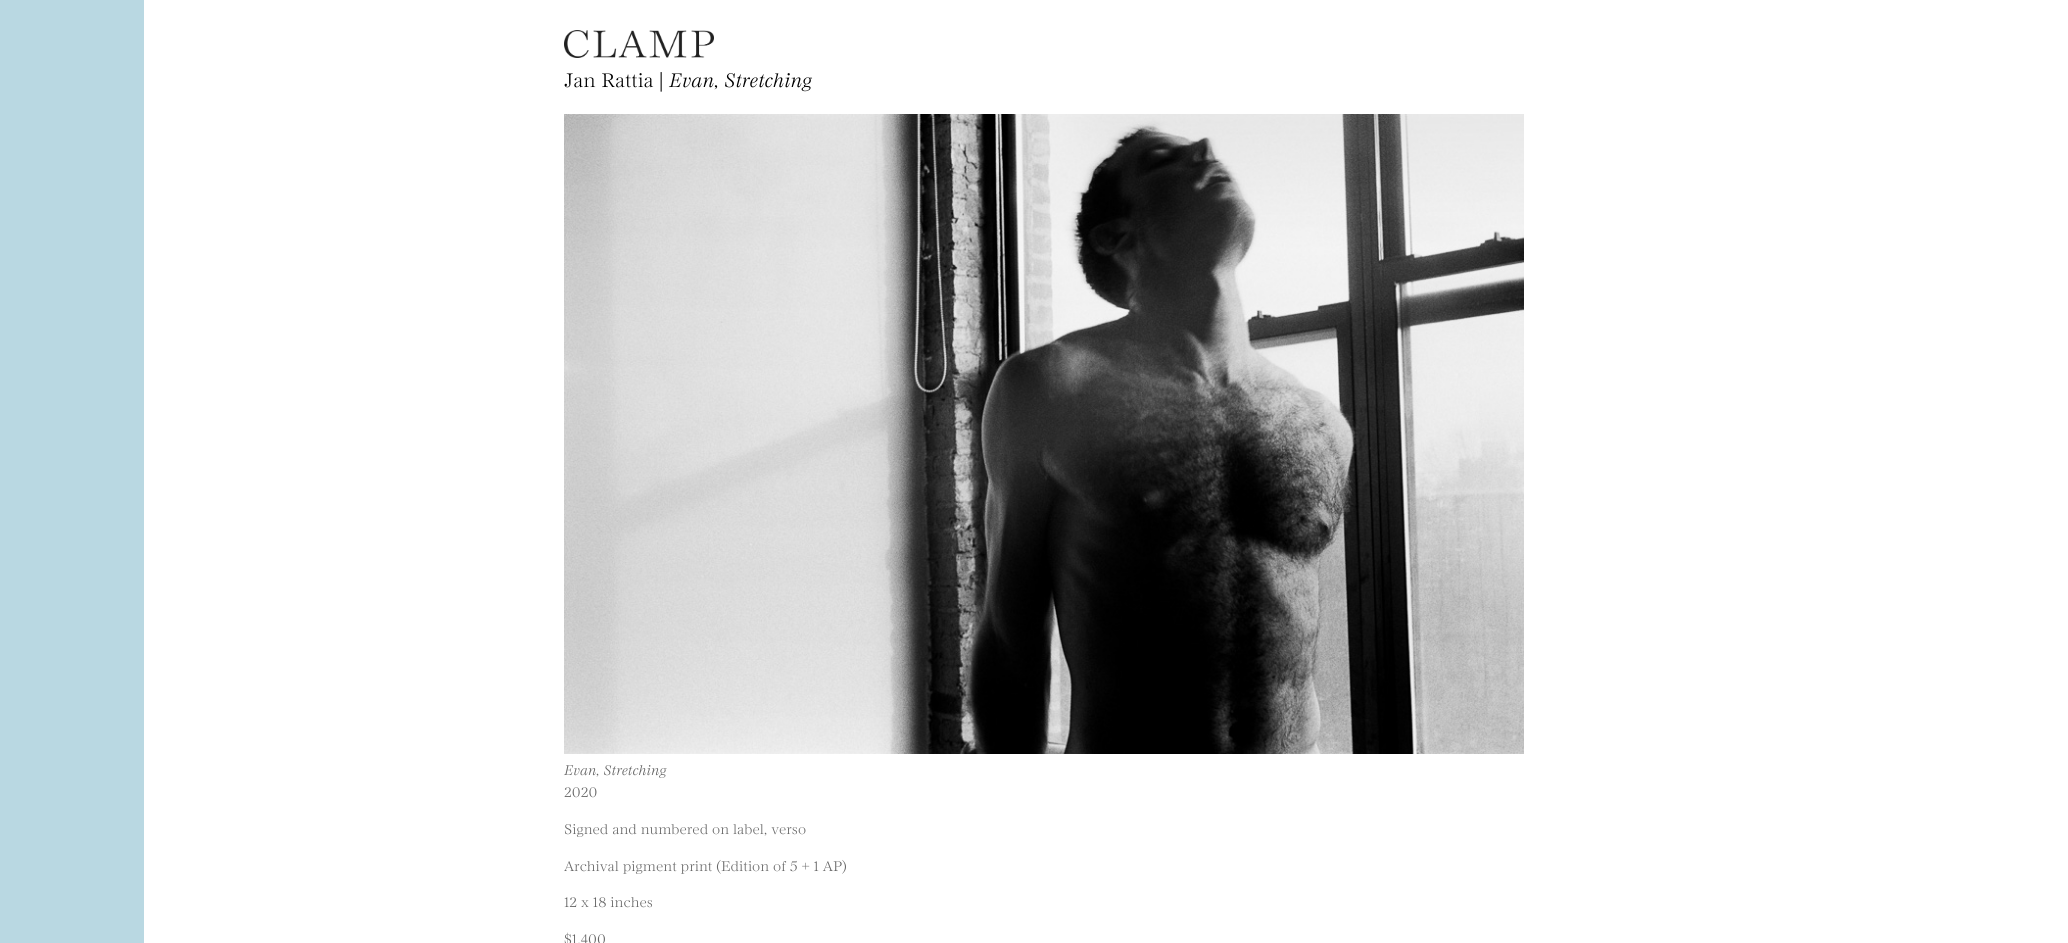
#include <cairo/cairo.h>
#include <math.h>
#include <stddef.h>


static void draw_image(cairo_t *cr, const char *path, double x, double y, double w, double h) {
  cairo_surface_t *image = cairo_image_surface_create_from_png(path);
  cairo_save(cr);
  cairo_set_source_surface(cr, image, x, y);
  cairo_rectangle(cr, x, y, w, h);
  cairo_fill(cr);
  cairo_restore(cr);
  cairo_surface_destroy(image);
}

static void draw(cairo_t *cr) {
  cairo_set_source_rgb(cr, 1, 1, 1);
  cairo_paint(cr);
  cairo_set_source_rgb(cr, 185 / 255.0, 216 / 255.0, 226 / 255.0);
  cairo_rectangle(cr, 0, 0, 144, 943);
  cairo_fill(cr);
  draw_image(cr, "images/1.png", 564, 30, 150, 28);
  draw_image(cr, "images/2.png", 564, 114, 960, 640);
  cairo_select_font_face(cr, "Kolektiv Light", CAIRO_FONT_SLANT_NORMAL, CAIRO_FONT_WEIGHT_NORMAL);
  cairo_set_font_size(cr, 21.5);
  cairo_set_source_rgb(cr, 0, 0, 0);
  cairo_move_to(cr, 564, 87);
  cairo_show_text(cr, "Jan Rattia");
  cairo_select_font_face(cr, "Liberation Serif", CAIRO_FONT_SLANT_NORMAL, CAIRO_FONT_WEIGHT_NORMAL);
  cairo_move_to(cr, 659, 87);
  cairo_show_text(cr, "|");
  cairo_select_font_face(cr, "Kolektiv Light", CAIRO_FONT_SLANT_ITALIC, CAIRO_FONT_WEIGHT_NORMAL);
  cairo_move_to(cr, 669, 87);
  cairo_show_text(cr, "Evan, Stretching");
  cairo_set_font_size(cr, 15.4);
  cairo_set_source_rgb(cr, 102 / 255.0, 102 / 255.0, 102 / 255.0);
  cairo_move_to(cr, 564, 775);
  cairo_show_text(cr, "Evan, Stretching");
  cairo_select_font_face(cr, "Kolektiv Light", CAIRO_FONT_SLANT_NORMAL, CAIRO_FONT_WEIGHT_NORMAL);
  cairo_move_to(cr, 564, 797);
  cairo_show_text(cr, "2020");
  cairo_move_to(cr, 564, 834);
  cairo_show_text(cr, "Signed and numbered on label, verso");
  cairo_move_to(cr, 564, 871);
  cairo_show_text(cr, "Archival pigment print (Edition of 5 + 1 AP)");
  cairo_move_to(cr, 564, 907);
  cairo_show_text(cr, "12 x 18 inches");
  cairo_move_to(cr, 564, 944);
  cairo_show_text(cr, "$1,400");
}

int main(void) {
  cairo_surface_t *surface = cairo_image_surface_create(CAIRO_FORMAT_RGB24, 2068, 943);
  cairo_t *cr = cairo_create(surface);
  cairo_font_options_t *options = cairo_font_options_create();
  cairo_font_options_set_hint_metrics(options, CAIRO_HINT_METRICS_OFF);
  cairo_font_options_set_hint_style(options, CAIRO_HINT_STYLE_NONE);
  cairo_set_font_options(cr, options);
  cairo_set_miter_limit(cr, 4);
  draw(cr);
  cairo_surface_write_to_png(surface, "out.png");
  cairo_font_options_destroy(options);
  cairo_destroy(cr);
  cairo_surface_destroy(surface);
  return 0;
}
